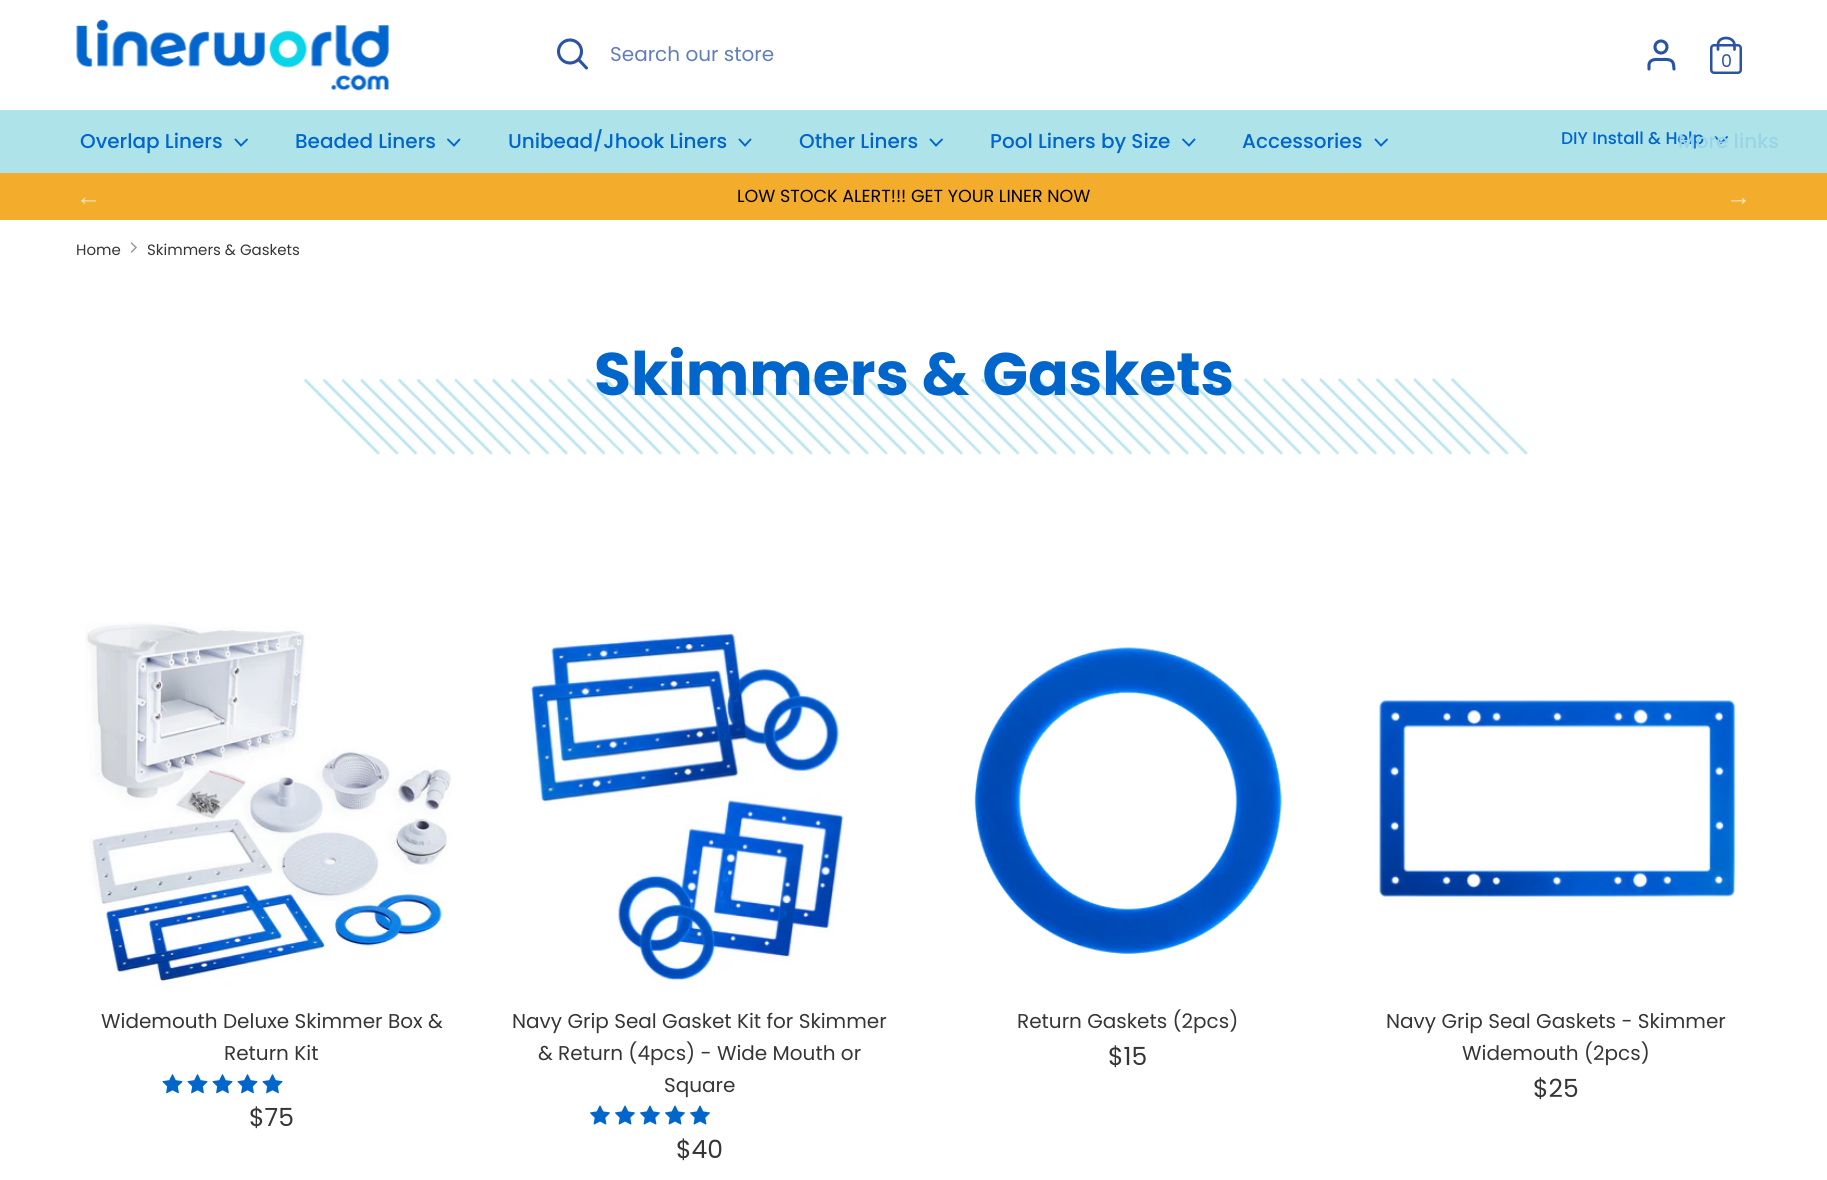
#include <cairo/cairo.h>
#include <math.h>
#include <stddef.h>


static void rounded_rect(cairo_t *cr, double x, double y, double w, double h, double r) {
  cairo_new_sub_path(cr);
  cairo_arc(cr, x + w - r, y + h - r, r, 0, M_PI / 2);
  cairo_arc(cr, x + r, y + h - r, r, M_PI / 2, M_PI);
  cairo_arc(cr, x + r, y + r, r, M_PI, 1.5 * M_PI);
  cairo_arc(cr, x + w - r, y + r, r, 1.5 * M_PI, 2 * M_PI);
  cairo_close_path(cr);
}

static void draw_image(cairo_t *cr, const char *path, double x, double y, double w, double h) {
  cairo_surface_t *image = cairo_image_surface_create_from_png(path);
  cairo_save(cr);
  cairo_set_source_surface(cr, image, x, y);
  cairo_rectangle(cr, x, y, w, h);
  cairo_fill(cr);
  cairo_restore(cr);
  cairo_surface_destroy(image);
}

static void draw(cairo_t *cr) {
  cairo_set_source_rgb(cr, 1, 1, 1);
  cairo_paint(cr);
  draw_image(cr, "images/1.png", 76, 19, 313, 72);
  cairo_arc(cr, 570, 51.5, 11.5, 0, 2 * M_PI);
  cairo_set_source_rgb(cr, 44 / 255.0, 82 / 255.0, 164 / 255.0);
  cairo_set_line_width(cr, 3.1);
  cairo_stroke(cr);
  cairo_new_path(cr);
  cairo_move_to(cr, 586.5, 68);
  cairo_line_to(cr, 578.5, 59.5);
  cairo_set_line_cap(cr, CAIRO_LINE_CAP_ROUND);
  cairo_stroke(cr);
  cairo_new_path(cr);
  cairo_move_to(cr, 1674, 69);
  cairo_line_to(cr, 1673.5, 64.5);
  cairo_curve_to(cr, 1672.5, 58.5, 1666, 59.5, 1661, 59.5);
  cairo_curve_to(cr, 1656.5, 59.5, 1650, 58.5, 1649, 64.5);
  cairo_line_to(cr, 1649, 69);
  cairo_stroke(cr);
  cairo_arc(cr, 1661, 47, 6, 0, 2 * M_PI);
  cairo_set_line_cap(cr, CAIRO_LINE_CAP_BUTT);
  cairo_stroke(cr);
  rounded_rect(cr, 1711.25, 45.25, 29.5, 27.5, 2.75);
  cairo_set_line_width(cr, 2.5);
  cairo_stroke(cr);
  cairo_new_path(cr);
  cairo_move_to(cr, 1718, 49.5);
  cairo_line_to(cr, 1718, 44.5);
  cairo_curve_to(cr, 1718, 40.5, 1721.5, 38, 1726, 38);
  cairo_curve_to(cr, 1730.5, 38, 1734, 40.5, 1734.5, 44.5);
  cairo_line_to(cr, 1734.5, 49.5);
  cairo_set_line_width(cr, 2.7);
  cairo_set_line_cap(cr, CAIRO_LINE_CAP_ROUND);
  cairo_stroke(cr);
  cairo_set_source_rgb(cr, 175 / 255.0, 227 / 255.0, 234 / 255.0);
  cairo_rectangle(cr, 0, 110, 1827, 63);
  cairo_fill(cr);
  cairo_new_path(cr);
  cairo_move_to(cr, 235.5, 139.5);
  cairo_line_to(cr, 241, 145.5);
  cairo_line_to(cr, 247, 139.5);
  cairo_set_source_rgb(cr, 0, 102 / 255.0, 204 / 255.0);
  cairo_set_line_width(cr, 1.9);
  cairo_stroke(cr);
  cairo_new_path(cr);
  cairo_move_to(cr, 448, 139.5);
  cairo_line_to(cr, 454, 145.5);
  cairo_line_to(cr, 459.5, 139.5);
  cairo_stroke(cr);
  cairo_new_path(cr);
  cairo_move_to(cr, 739.5, 139.5);
  cairo_line_to(cr, 745, 145.5);
  cairo_line_to(cr, 750.5, 139.5);
  cairo_stroke(cr);
  cairo_new_path(cr);
  cairo_move_to(cr, 930.5, 139.5);
  cairo_line_to(cr, 936, 145.5);
  cairo_line_to(cr, 942, 139.5);
  cairo_stroke(cr);
  cairo_new_path(cr);
  cairo_move_to(cr, 1183, 139.5);
  cairo_line_to(cr, 1189, 145.5);
  cairo_line_to(cr, 1194.5, 139.5);
  cairo_stroke(cr);
  cairo_new_path(cr);
  cairo_move_to(cr, 1375.5, 139.5);
  cairo_line_to(cr, 1381, 145.5);
  cairo_line_to(cr, 1387, 139.5);
  cairo_stroke(cr);
  cairo_new_path(cr);
  cairo_move_to(cr, 1715.5, 137);
  cairo_line_to(cr, 1721, 143);
  cairo_line_to(cr, 1727, 137);
  cairo_stroke(cr);
  cairo_set_source_rgb(cr, 244 / 255.0, 172 / 255.0, 45 / 255.0);
  cairo_rectangle(cr, 0, 173, 1827, 47);
  cairo_fill(cr);
  cairo_new_path(cr);
  cairo_move_to(cr, 131.5, 252);
  cairo_line_to(cr, 136, 247.5);
  cairo_line_to(cr, 131.5, 243);
  cairo_set_source_rgb(cr, 155 / 255.0, 155 / 255.0, 155 / 255.0);
  cairo_set_line_width(cr, 1.5);
  cairo_stroke(cr);
  draw_image(cr, "images/2.png", 303, 377, 1225, 79);
  draw_image(cr, "images/3.png", 85, 622, 367, 364);
  draw_image(cr, "images/4.png", 162, 1074, 21, 20);
  draw_image(cr, "images/4.png", 187, 1074, 21, 20);
  draw_image(cr, "images/4.png", 212, 1074, 21, 20);
  draw_image(cr, "images/4.png", 237, 1074, 21, 20);
  draw_image(cr, "images/4.png", 262, 1074, 21, 20);
  draw_image(cr, "images/5.png", 530, 631, 314, 350);
  draw_image(cr, "images/6.png", 590, 1105, 20, 20);
  draw_image(cr, "images/6.png", 615, 1105, 20, 20);
  draw_image(cr, "images/6.png", 640, 1105, 20, 20);
  draw_image(cr, "images/6.png", 665, 1105, 20, 20);
  draw_image(cr, "images/6.png", 690, 1105, 20, 20);
  draw_image(cr, "images/7.png", 974, 647, 308, 307);
  draw_image(cr, "images/8.png", 1379, 700, 357, 197);
  cairo_select_font_face(cr, "Poppins", CAIRO_FONT_SLANT_NORMAL, CAIRO_FONT_WEIGHT_NORMAL);
  cairo_set_font_size(cr, 20);
  cairo_set_source_rgb(cr, 97 / 255.0, 125 / 255.0, 187 / 255.0);
  cairo_move_to(cr, 610, 61);
  cairo_show_text(cr, "Search our store");
  cairo_set_font_size(cr, 17.5);
  cairo_set_source_rgb(cr, 44 / 255.0, 82 / 255.0, 164 / 255.0);
  cairo_move_to(cr, 1721, 67);
  cairo_show_text(cr, "0");
  cairo_select_font_face(cr, "Poppins Medium", CAIRO_FONT_SLANT_NORMAL, CAIRO_FONT_WEIGHT_NORMAL);
  cairo_set_font_size(cr, 20);
  cairo_set_source_rgb(cr, 0, 102 / 255.0, 204 / 255.0);
  cairo_move_to(cr, 80, 148);
  cairo_show_text(cr, "Overlap Liners");
  cairo_move_to(cr, 295, 148);
  cairo_show_text(cr, "Beaded Liners");
  cairo_move_to(cr, 508, 148);
  cairo_show_text(cr, "Unibead/Jhook Liners");
  cairo_move_to(cr, 799, 148);
  cairo_show_text(cr, "Other Liners");
  cairo_move_to(cr, 990, 148);
  cairo_show_text(cr, "Pool Liners by Size");
  cairo_move_to(cr, 1242, 148);
  cairo_show_text(cr, "Accessories");
  cairo_set_font_size(cr, 17);
  cairo_move_to(cr, 1561, 144);
  cairo_show_text(cr, "DIY Install & Help");
  cairo_set_font_size(cr, 20);
  cairo_set_source_rgb(cr, 153 / 255.0, 211 / 255.0, 230 / 255.0);
  cairo_move_to(cr, 1678, 148);
  cairo_show_text(cr, "More links");
  cairo_select_font_face(cr, "Liberation Serif", CAIRO_FONT_SLANT_NORMAL, CAIRO_FONT_WEIGHT_NORMAL);
  cairo_set_font_size(cr, 25);
  cairo_set_source_rgb(cr, 252 / 255.0, 234 / 255.0, 203 / 255.0);
  cairo_move_to(cr, 76, 205);
  cairo_show_text(cr, "←");
  cairo_select_font_face(cr, "Poppins", CAIRO_FONT_SLANT_NORMAL, CAIRO_FONT_WEIGHT_NORMAL);
  cairo_set_font_size(cr, 17.5);
  cairo_set_source_rgb(cr, 0, 0, 0);
  cairo_move_to(cr, 737, 202);
  cairo_show_text(cr, "LOW STOCK ALERT!!! GET YOUR LINER NOW");
  cairo_select_font_face(cr, "Liberation Serif", CAIRO_FONT_SLANT_NORMAL, CAIRO_FONT_WEIGHT_NORMAL);
  cairo_set_font_size(cr, 25);
  cairo_set_source_rgb(cr, 252 / 255.0, 234 / 255.0, 203 / 255.0);
  cairo_move_to(cr, 1726, 205);
  cairo_show_text(cr, "→");
  cairo_select_font_face(cr, "Poppins", CAIRO_FONT_SLANT_NORMAL, CAIRO_FONT_WEIGHT_NORMAL);
  cairo_set_font_size(cr, 15);
  cairo_set_source_rgb(cr, 54 / 255.0, 54 / 255.0, 54 / 255.0);
  cairo_move_to(cr, 76, 255);
  cairo_show_text(cr, "Home");
  cairo_move_to(cr, 147, 255);
  cairo_show_text(cr, "Skimmers & Gaskets");
  cairo_select_font_face(cr, "Poppins", CAIRO_FONT_SLANT_NORMAL, CAIRO_FONT_WEIGHT_BOLD);
  cairo_set_font_size(cr, 60);
  cairo_set_source_rgb(cr, 0, 102 / 255.0, 204 / 255.0);
  cairo_move_to(cr, 594, 395);
  cairo_show_text(cr, "Skimmers & Gaskets");
  cairo_select_font_face(cr, "Poppins", CAIRO_FONT_SLANT_NORMAL, CAIRO_FONT_WEIGHT_NORMAL);
  cairo_set_font_size(cr, 20);
  cairo_set_source_rgb(cr, 54 / 255.0, 54 / 255.0, 54 / 255.0);
  cairo_move_to(cr, 101, 1028);
  cairo_show_text(cr, "Widemouth Deluxe Skimmer Box &");
  cairo_move_to(cr, 224, 1060);
  cairo_show_text(cr, "Return Kit");
  cairo_set_font_size(cr, 25);
  cairo_move_to(cr, 249, 1126);
  cairo_show_text(cr, "$75");
  cairo_set_font_size(cr, 20);
  cairo_move_to(cr, 512, 1028);
  cairo_show_text(cr, "Navy Grip Seal Gasket Kit for Skimmer");
  cairo_move_to(cr, 538, 1060);
  cairo_show_text(cr, "& Return (4pcs) - Wide Mouth or");
  cairo_move_to(cr, 664, 1092);
  cairo_show_text(cr, "Square");
  cairo_set_font_size(cr, 25);
  cairo_move_to(cr, 676, 1158);
  cairo_show_text(cr, "$40");
  cairo_set_font_size(cr, 20);
  cairo_move_to(cr, 1017, 1028);
  cairo_show_text(cr, "Return Gaskets (2pcs)");
  cairo_set_font_size(cr, 25);
  cairo_move_to(cr, 1108, 1065);
  cairo_show_text(cr, "$15");
  cairo_set_font_size(cr, 20);
  cairo_move_to(cr, 1386, 1028);
  cairo_show_text(cr, "Navy Grip Seal Gaskets - Skimmer");
  cairo_move_to(cr, 1462, 1060);
  cairo_show_text(cr, "Widemouth (2pcs)");
  cairo_set_font_size(cr, 25);
  cairo_move_to(cr, 1533, 1097);
  cairo_show_text(cr, "$25");
}

int main(void) {
  cairo_surface_t *surface = cairo_image_surface_create(CAIRO_FORMAT_RGB24, 1827, 1180);
  cairo_t *cr = cairo_create(surface);
  cairo_font_options_t *options = cairo_font_options_create();
  cairo_font_options_set_hint_metrics(options, CAIRO_HINT_METRICS_OFF);
  cairo_font_options_set_hint_style(options, CAIRO_HINT_STYLE_NONE);
  cairo_set_font_options(cr, options);
  cairo_set_miter_limit(cr, 4);
  draw(cr);
  cairo_surface_write_to_png(surface, "out.png");
  cairo_font_options_destroy(options);
  cairo_destroy(cr);
  cairo_surface_destroy(surface);
  return 0;
}
